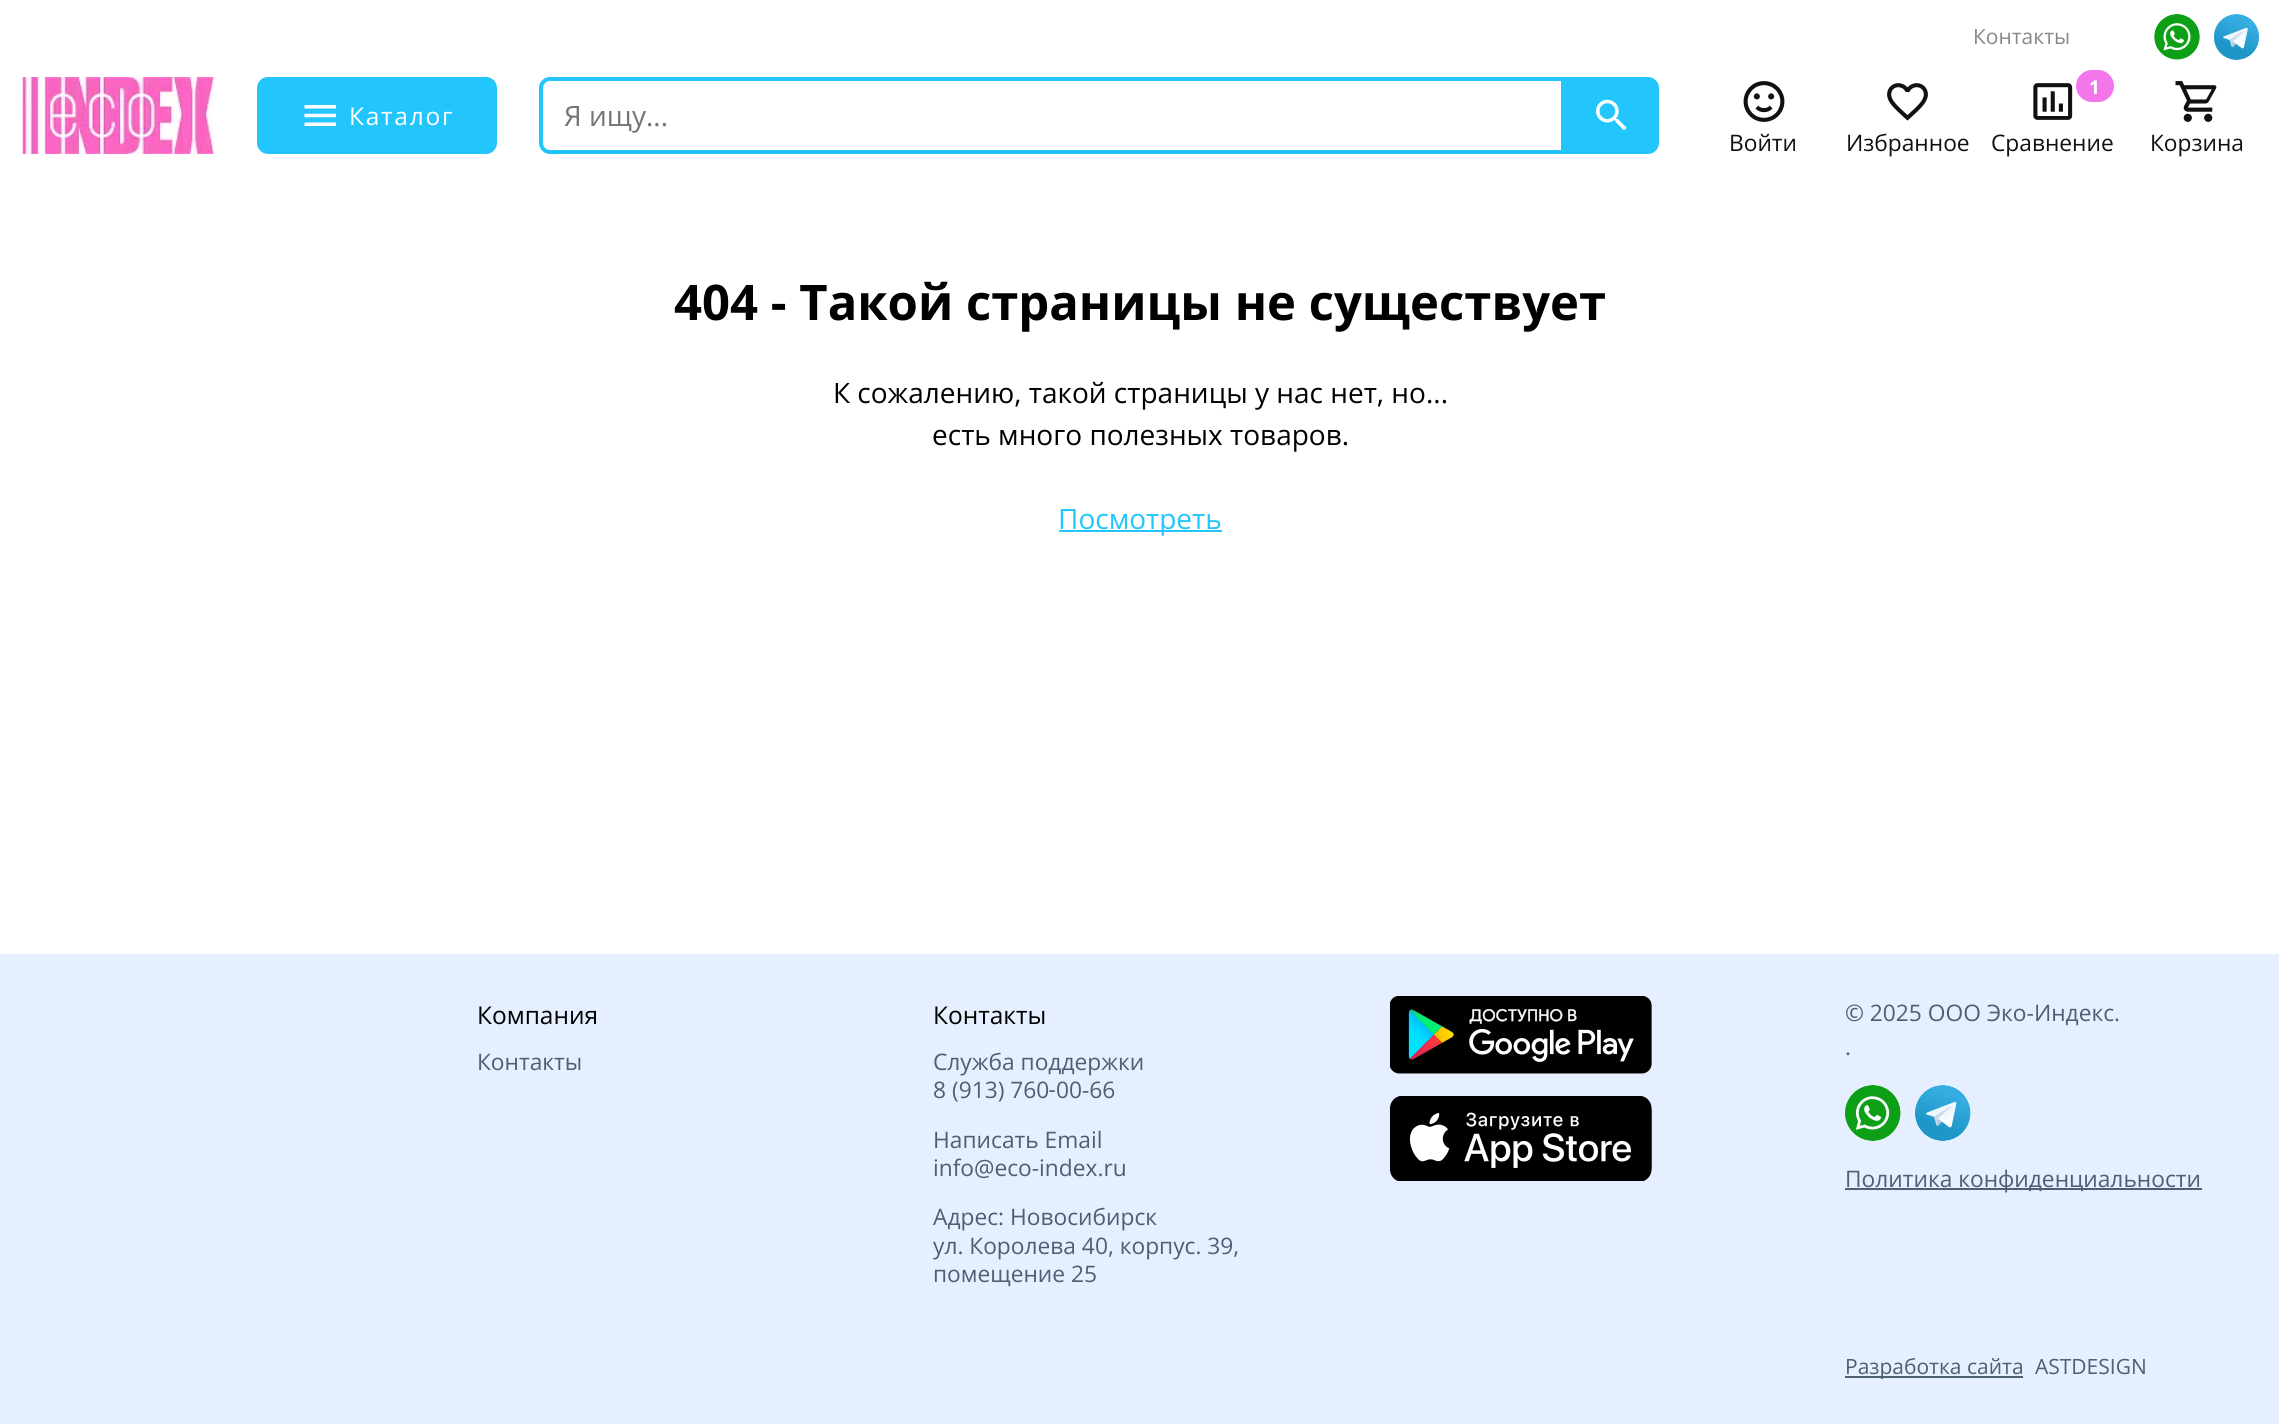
#include <cairo/cairo.h>
#include <math.h>
#include <stddef.h>


static void draw_spaced(cairo_t *cr, double x, double y, const char *s, double letter, double word) {
  cairo_move_to(cr, x, y);
  while (*s) {
    char ch[5] = {0};
    int n = 0;
    do ch[n++] = *s++; while ((*s & 0xC0) == 0x80);
    cairo_show_text(cr, ch);
    cairo_rel_move_to(cr, letter + word * (*ch == ' '), 0);
  }
}

static void rounded_rect(cairo_t *cr, double x, double y, double w, double h, double r) {
  cairo_new_sub_path(cr);
  cairo_arc(cr, x + w - r, y + h - r, r, 0, M_PI / 2);
  cairo_arc(cr, x + r, y + h - r, r, M_PI / 2, M_PI);
  cairo_arc(cr, x + r, y + r, r, M_PI, 1.5 * M_PI);
  cairo_arc(cr, x + w - r, y + r, r, 1.5 * M_PI, 2 * M_PI);
  cairo_close_path(cr);
}

static void draw_image(cairo_t *cr, const char *path, double x, double y, double w, double h) {
  cairo_surface_t *image = cairo_image_surface_create_from_png(path);
  cairo_save(cr);
  cairo_set_source_surface(cr, image, x, y);
  cairo_rectangle(cr, x, y, w, h);
  cairo_fill(cr);
  cairo_restore(cr);
  cairo_surface_destroy(image);
}

static void draw(cairo_t *cr) {
  cairo_set_source_rgb(cr, 1, 1, 1);
  cairo_paint(cr);
  draw_image(cr, "images/1.png", 2154, 14, 46, 46);
  draw_image(cr, "images/2.png", 2214, 14, 45, 46);
  draw_image(cr, "images/3.png", 22, 77, 192, 77);
  cairo_set_source_rgb(cr, 34 / 255.0, 198 / 255.0, 252 / 255.0);
  rounded_rect(cr, 257, 77, 240, 77, 11);
  cairo_fill(cr);
  draw_image(cr, "images/4.png", 304, 105, 32, 21);
  cairo_new_path(cr);
  cairo_move_to(cr, 550, 79);
  cairo_line_to(cr, 1563, 79);
  cairo_line_to(cr, 1563, 152);
  cairo_line_to(cr, 550, 152);
  cairo_curve_to(cr, 545, 152, 541, 148, 541, 143);
  cairo_line_to(cr, 541, 88);
  cairo_curve_to(cr, 541, 83, 545, 79, 550, 79);
  cairo_close_path(cr);
  cairo_set_line_width(cr, 4);
  cairo_stroke(cr);
  cairo_new_path(cr);
  cairo_move_to(cr, 1565, 77);
  cairo_line_to(cr, 1648, 77);
  cairo_curve_to(cr, 1654, 77, 1659, 82, 1659, 88);
  cairo_line_to(cr, 1659, 143);
  cairo_curve_to(cr, 1659, 149, 1654, 154, 1648, 154);
  cairo_line_to(cr, 1565, 154);
  cairo_close_path(cr);
  cairo_fill(cr);
  draw_image(cr, "images/5.png", 1596, 99, 31, 32);
  draw_image(cr, "images/6.png", 1743, 81, 42, 41);
  draw_image(cr, "images/7.png", 1887, 83, 41, 38);
  cairo_set_source_rgb(cr, 243 / 255.0, 119 / 255.0, 235 / 255.0);
  rounded_rect(cr, 2076, 70, 38, 32, 16);
  cairo_fill(cr);
  draw_image(cr, "images/8.png", 2033, 83, 40, 37);
  draw_image(cr, "images/9.png", 2175, 81, 42, 41);
  cairo_set_source_rgb(cr, 34 / 255.0, 198 / 255.0, 252 / 255.0);
  cairo_rectangle(cr, 1059, 530, 163, 2);
  cairo_fill(cr);
  cairo_set_source_rgb(cr, 229 / 255.0, 239 / 255.0, 1);
  cairo_rectangle(cr, 0, 954, 2279, 470);
  cairo_fill(cr);
  draw_image(cr, "images/10.png", 1390, 996, 262, 78);
  draw_image(cr, "images/11.png", 1390, 1096, 262, 85);
  cairo_set_source_rgb(cr, 1, 1, 1);
  cairo_arc(cr, 1873, 1113, 28, 0, 2 * M_PI);
  cairo_fill(cr);
  draw_image(cr, "images/12.png", 1845, 1085, 56, 56);
  cairo_arc(cr, 1943, 1113, 28, 0, 2 * M_PI);
  cairo_fill(cr);
  draw_image(cr, "images/13.png", 1915, 1085, 56, 56);
  cairo_set_source_rgb(cr, 77 / 255.0, 95 / 255.0, 113 / 255.0);
  cairo_rectangle(cr, 1845, 1188, 357, 2);
  cairo_fill(cr);
  cairo_rectangle(cr, 1845, 1376, 178, 2);
  cairo_fill(cr);
  cairo_select_font_face(cr, "Open Sans", CAIRO_FONT_SLANT_NORMAL, CAIRO_FONT_WEIGHT_NORMAL);
  cairo_set_font_size(cr, 21);
  cairo_set_source_rgb(cr, 136 / 255.0, 136 / 255.0, 136 / 255.0);
  cairo_move_to(cr, 1973, 44);
  cairo_show_text(cr, "Контакты");
  cairo_set_font_size(cr, 24.5);
  cairo_set_source_rgb(cr, 1, 1, 1);
  draw_spaced(cr, 349, 125, "Каталог", 1.75, 0);
  cairo_set_font_size(cr, 28);
  cairo_set_source_rgb(cr, 117 / 255.0, 117 / 255.0, 117 / 255.0);
  cairo_move_to(cr, 564, 126);
  cairo_show_text(cr, "Я ищу...");
  cairo_set_font_size(cr, 22.75);
  cairo_set_source_rgb(cr, 17 / 255.0, 17 / 255.0, 17 / 255.0);
  cairo_move_to(cr, 1729, 151);
  cairo_show_text(cr, "Войти");
  cairo_move_to(cr, 1846, 151);
  cairo_show_text(cr, "Избранное");
  cairo_select_font_face(cr, "Open Sans", CAIRO_FONT_SLANT_NORMAL, CAIRO_FONT_WEIGHT_BOLD);
  cairo_set_font_size(cr, 19);
  cairo_set_source_rgb(cr, 1, 1, 1);
  draw_spaced(cr, 2089, 94, "1", 1, 0);
  cairo_select_font_face(cr, "Open Sans", CAIRO_FONT_SLANT_NORMAL, CAIRO_FONT_WEIGHT_NORMAL);
  cairo_set_font_size(cr, 22.75);
  cairo_set_source_rgb(cr, 17 / 255.0, 17 / 255.0, 17 / 255.0);
  cairo_move_to(cr, 1991, 151);
  cairo_show_text(cr, "Сравнение");
  cairo_move_to(cr, 2150, 151);
  cairo_show_text(cr, "Корзина");
  cairo_select_font_face(cr, "Open Sans", CAIRO_FONT_SLANT_NORMAL, CAIRO_FONT_WEIGHT_BOLD);
  cairo_set_font_size(cr, 49);
  cairo_set_source_rgb(cr, 0, 0, 0);
  cairo_move_to(cr, 674, 320);
  cairo_show_text(cr, "404 - Такой страницы не существует");
  cairo_select_font_face(cr, "Open Sans", CAIRO_FONT_SLANT_NORMAL, CAIRO_FONT_WEIGHT_NORMAL);
  cairo_set_font_size(cr, 28);
  cairo_move_to(cr, 833, 403);
  cairo_show_text(cr, "К сожалению, такой страницы у нас нет, но...");
  cairo_move_to(cr, 932, 445);
  cairo_show_text(cr, "есть много полезных товаров.");
  cairo_set_source_rgb(cr, 34 / 255.0, 198 / 255.0, 252 / 255.0);
  cairo_move_to(cr, 1058, 529);
  cairo_show_text(cr, "Посмотреть");
  cairo_set_font_size(cr, 24.5);
  cairo_set_source_rgb(cr, 0, 0, 0);
  cairo_move_to(cr, 477, 1024);
  cairo_show_text(cr, "Компания");
  cairo_set_font_size(cr, 22.75);
  cairo_set_source_rgb(cr, 77 / 255.0, 95 / 255.0, 113 / 255.0);
  cairo_move_to(cr, 477, 1070);
  cairo_show_text(cr, "Контакты");
  cairo_set_font_size(cr, 24.5);
  cairo_set_source_rgb(cr, 0, 0, 0);
  cairo_move_to(cr, 933, 1024);
  cairo_show_text(cr, "Контакты");
  cairo_set_font_size(cr, 22.75);
  cairo_set_source_rgb(cr, 77 / 255.0, 95 / 255.0, 113 / 255.0);
  cairo_move_to(cr, 933, 1070);
  cairo_show_text(cr, "Служба поддержки");
  cairo_move_to(cr, 933, 1098);
  cairo_show_text(cr, "8 (913) 760");
  cairo_select_font_face(cr, "Roboto", CAIRO_FONT_SLANT_NORMAL, CAIRO_FONT_WEIGHT_NORMAL);
  cairo_move_to(cr, 1049, 1098);
  cairo_show_text(cr, "‑");
  cairo_select_font_face(cr, "Open Sans", CAIRO_FONT_SLANT_NORMAL, CAIRO_FONT_WEIGHT_NORMAL);
  cairo_move_to(cr, 1056, 1098);
  cairo_show_text(cr, "00-66");
  cairo_move_to(cr, 933, 1148);
  cairo_show_text(cr, "Написать Email");
  cairo_move_to(cr, 933, 1176);
  cairo_show_text(cr, "info@eco-index.ru");
  cairo_move_to(cr, 933, 1225);
  cairo_show_text(cr, "Адрес: Новосибирск");
  cairo_move_to(cr, 933, 1254);
  cairo_show_text(cr, "ул. Королева 40, корпус. 39,");
  cairo_move_to(cr, 933, 1282);
  cairo_show_text(cr, "помещение 25");
  cairo_move_to(cr, 1845, 1021);
  cairo_show_text(cr, "© 2025 ООО Эко-Индекс.");
  cairo_move_to(cr, 1845, 1055);
  cairo_show_text(cr, ".");
  cairo_move_to(cr, 1845, 1187);
  cairo_show_text(cr, "Политика конфиденциальности");
  cairo_set_font_size(cr, 21);
  cairo_move_to(cr, 1845, 1374);
  cairo_show_text(cr, "Разработка сайта");
  cairo_move_to(cr, 2035, 1374);
  cairo_show_text(cr, "ASTDESIGN");
}

int main(void) {
  cairo_surface_t *surface = cairo_image_surface_create(CAIRO_FORMAT_RGB24, 2279, 1424);
  cairo_t *cr = cairo_create(surface);
  cairo_font_options_t *options = cairo_font_options_create();
  cairo_font_options_set_hint_metrics(options, CAIRO_HINT_METRICS_OFF);
  cairo_font_options_set_hint_style(options, CAIRO_HINT_STYLE_NONE);
  cairo_set_font_options(cr, options);
  cairo_set_miter_limit(cr, 4);
  draw(cr);
  cairo_surface_write_to_png(surface, "out.png");
  cairo_font_options_destroy(options);
  cairo_destroy(cr);
  cairo_surface_destroy(surface);
  return 0;
}
